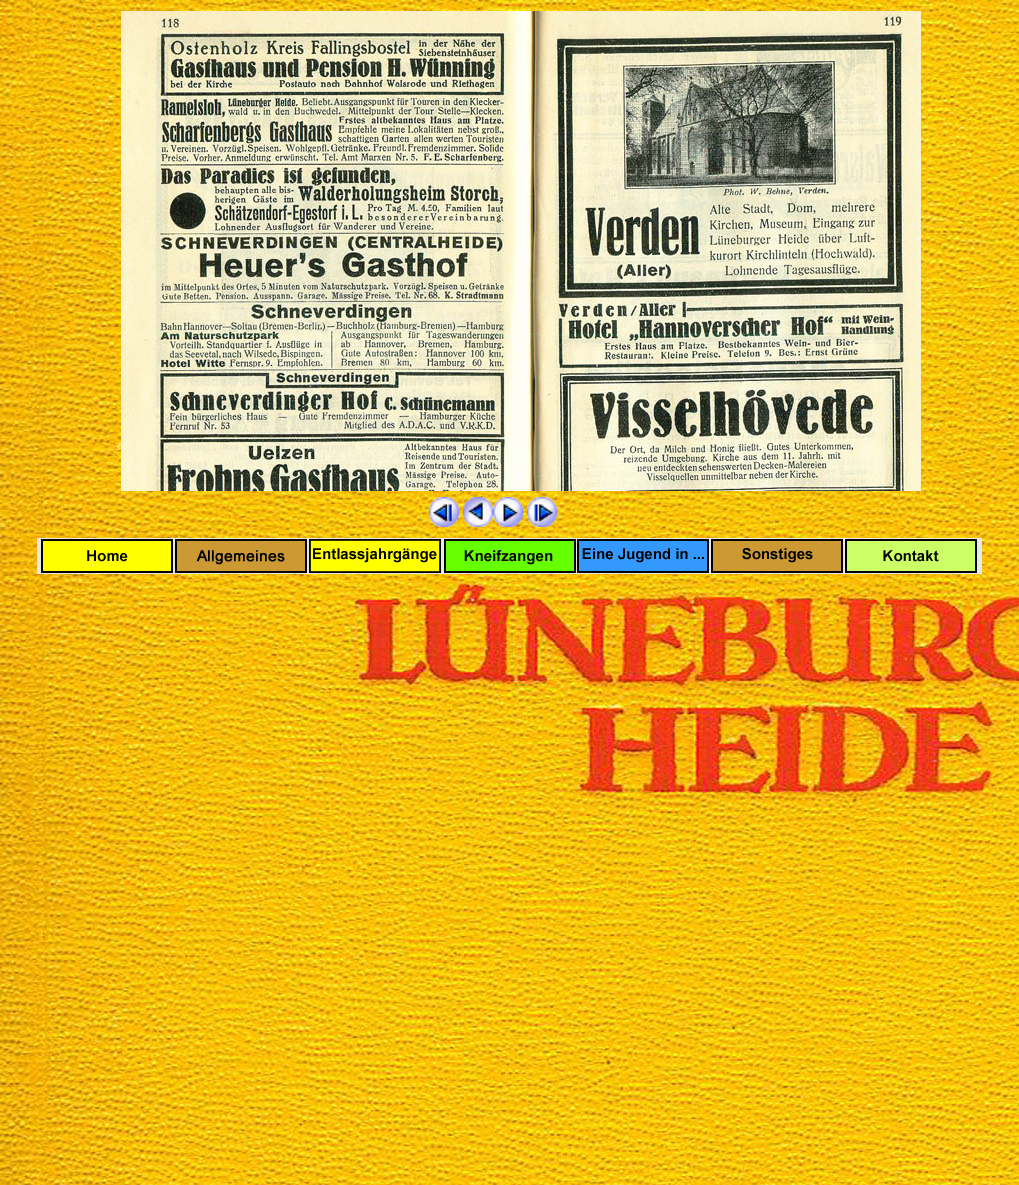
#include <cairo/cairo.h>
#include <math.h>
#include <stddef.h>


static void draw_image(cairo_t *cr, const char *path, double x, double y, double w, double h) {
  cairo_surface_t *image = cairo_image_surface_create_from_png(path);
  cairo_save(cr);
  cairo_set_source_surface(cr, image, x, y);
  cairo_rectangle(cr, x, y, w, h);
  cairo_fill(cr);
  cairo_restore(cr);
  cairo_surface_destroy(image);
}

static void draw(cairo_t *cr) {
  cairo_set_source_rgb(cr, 1, 1, 1);
  cairo_paint(cr);
  draw_image(cr, "images/1.png", 0, 0, 1019, 1185);
  draw_image(cr, "images/2.png", 121, 11, 800, 480);
  draw_image(cr, "images/3.png", 429, 497, 30, 30);
  draw_image(cr, "images/4.png", 463, 497, 30, 30);
  draw_image(cr, "images/5.png", 493, 497, 30, 30);
  draw_image(cr, "images/6.png", 527, 497, 30, 30);
  cairo_set_source_rgb(cr, 232 / 255.0, 232 / 255.0, 232 / 255.0);
  cairo_rectangle(cr, 37, 538, 945, 1);
  cairo_fill(cr);
  cairo_rectangle(cr, 37, 539, 4, 35);
  cairo_fill(cr);
  draw_image(cr, "images/7.png", 41, 539, 132, 34);
  cairo_rectangle(cr, 173, 539, 2, 35);
  cairo_fill(cr);
  draw_image(cr, "images/8.png", 175, 539, 132, 34);
  cairo_rectangle(cr, 307, 539, 2, 35);
  cairo_fill(cr);
  draw_image(cr, "images/9.png", 309, 539, 132, 34);
  cairo_rectangle(cr, 441, 539, 3, 35);
  cairo_fill(cr);
  draw_image(cr, "images/10.png", 444, 539, 132, 34);
  cairo_rectangle(cr, 576, 539, 1, 35);
  cairo_fill(cr);
  draw_image(cr, "images/11.png", 577, 539, 132, 34);
  cairo_rectangle(cr, 709, 539, 2, 35);
  cairo_fill(cr);
  draw_image(cr, "images/12.png", 711, 539, 132, 34);
  cairo_rectangle(cr, 843, 539, 2, 35);
  cairo_fill(cr);
  draw_image(cr, "images/13.png", 845, 539, 132, 34);
  cairo_rectangle(cr, 977, 539, 5, 35);
  cairo_fill(cr);
  cairo_rectangle(cr, 41, 573, 132, 1);
  cairo_fill(cr);
  cairo_rectangle(cr, 175, 573, 132, 1);
  cairo_fill(cr);
  cairo_rectangle(cr, 309, 573, 132, 1);
  cairo_fill(cr);
  cairo_rectangle(cr, 444, 573, 132, 1);
  cairo_fill(cr);
  cairo_rectangle(cr, 577, 573, 132, 1);
  cairo_fill(cr);
  cairo_rectangle(cr, 711, 573, 132, 1);
  cairo_fill(cr);
  cairo_rectangle(cr, 845, 573, 132, 1);
  cairo_fill(cr);
}

int main(void) {
  cairo_surface_t *surface = cairo_image_surface_create(CAIRO_FORMAT_RGB24, 1019, 1185);
  cairo_t *cr = cairo_create(surface);
  cairo_font_options_t *options = cairo_font_options_create();
  cairo_font_options_set_hint_metrics(options, CAIRO_HINT_METRICS_OFF);
  cairo_font_options_set_hint_style(options, CAIRO_HINT_STYLE_NONE);
  cairo_set_font_options(cr, options);
  cairo_set_miter_limit(cr, 4);
  draw(cr);
  cairo_surface_write_to_png(surface, "out.png");
  cairo_font_options_destroy(options);
  cairo_destroy(cr);
  cairo_surface_destroy(surface);
  return 0;
}
